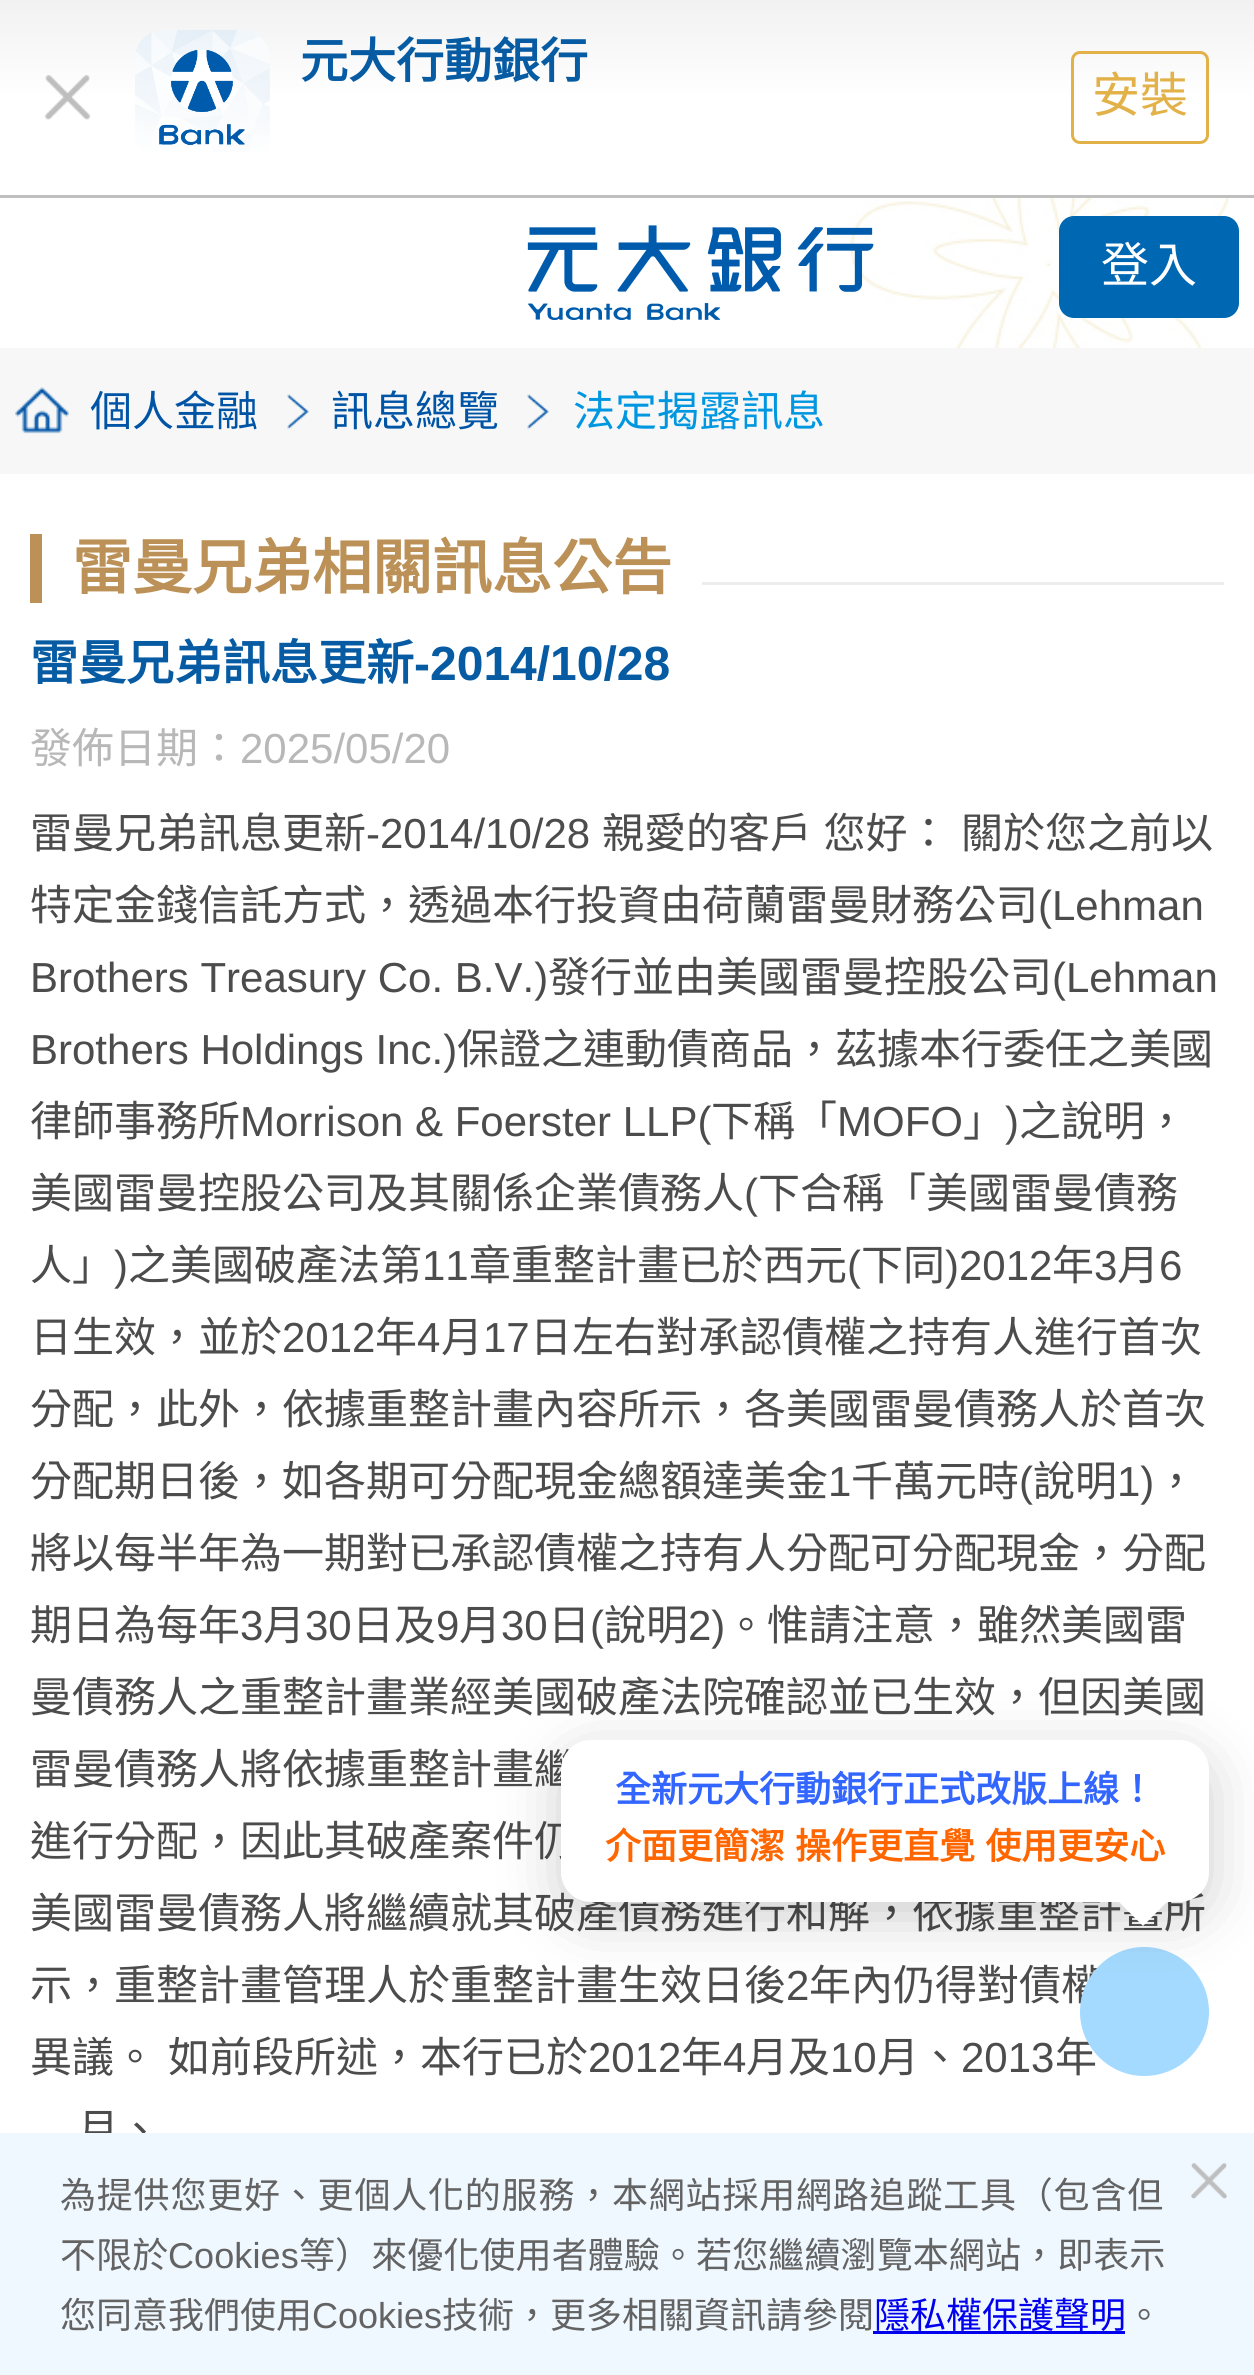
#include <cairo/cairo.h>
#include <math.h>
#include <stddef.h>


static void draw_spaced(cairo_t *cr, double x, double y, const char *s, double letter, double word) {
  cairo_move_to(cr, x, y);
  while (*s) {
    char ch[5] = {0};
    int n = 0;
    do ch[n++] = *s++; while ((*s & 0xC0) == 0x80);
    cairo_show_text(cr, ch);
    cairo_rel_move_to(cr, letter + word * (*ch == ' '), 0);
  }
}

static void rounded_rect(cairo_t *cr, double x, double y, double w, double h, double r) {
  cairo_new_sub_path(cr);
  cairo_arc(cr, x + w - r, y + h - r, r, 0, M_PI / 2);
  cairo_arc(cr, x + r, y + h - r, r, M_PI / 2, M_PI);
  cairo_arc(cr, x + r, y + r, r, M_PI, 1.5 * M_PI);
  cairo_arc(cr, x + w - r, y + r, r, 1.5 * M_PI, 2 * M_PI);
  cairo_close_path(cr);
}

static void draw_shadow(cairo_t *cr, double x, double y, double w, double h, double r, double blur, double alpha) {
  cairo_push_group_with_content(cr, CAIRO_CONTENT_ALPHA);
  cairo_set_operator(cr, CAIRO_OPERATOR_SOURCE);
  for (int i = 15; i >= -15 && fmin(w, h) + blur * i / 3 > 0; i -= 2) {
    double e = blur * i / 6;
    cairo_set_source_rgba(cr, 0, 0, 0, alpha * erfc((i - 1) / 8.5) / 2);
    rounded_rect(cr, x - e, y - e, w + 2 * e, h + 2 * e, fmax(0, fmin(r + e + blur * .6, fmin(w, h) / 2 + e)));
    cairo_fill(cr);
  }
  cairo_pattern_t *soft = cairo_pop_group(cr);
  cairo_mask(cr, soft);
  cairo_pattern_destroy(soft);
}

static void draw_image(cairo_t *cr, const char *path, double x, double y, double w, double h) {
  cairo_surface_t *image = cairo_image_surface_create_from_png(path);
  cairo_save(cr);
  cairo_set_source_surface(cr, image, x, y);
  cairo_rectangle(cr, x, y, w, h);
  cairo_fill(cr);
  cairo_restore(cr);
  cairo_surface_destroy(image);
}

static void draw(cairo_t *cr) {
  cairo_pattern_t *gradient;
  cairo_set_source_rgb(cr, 247 / 255.0, 247 / 255.0, 247 / 255.0);
  cairo_paint(cr);
  gradient = cairo_pattern_create_linear(627, 0, 627, 195);
  cairo_pattern_add_color_stop_rgba(gradient, 0, 241 / 255.0, 241 / 255.0, 241 / 255.0, 1);
  cairo_pattern_add_color_stop_rgba(gradient, 0.5, 1, 1, 1, 1);
  cairo_set_source(cr, gradient);
  cairo_pattern_destroy(gradient);
  cairo_rectangle(cr, 0, 0, 1254, 195);
  cairo_fill(cr);
  cairo_set_source_rgb(cr, 191 / 255.0, 191 / 255.0, 191 / 255.0);
  cairo_rectangle(cr, 0, 195, 1254, 3);
  cairo_fill(cr);
  draw_image(cr, "images/1.png", 45, 75, 45, 45);
  draw_image(cr, "images/2.png", 135, 30, 135, 122);
  rounded_rect(cr, 1072.5, 52.5, 135, 90, 7.5);
  cairo_set_source_rgb(cr, 226 / 255.0, 177 / 255.0, 72 / 255.0);
  cairo_set_line_width(cr, 3);
  cairo_stroke(cr);
  cairo_set_source_rgb(cr, 1, 1, 1);
  cairo_rectangle(cr, 0, 198, 1254, 150);
  cairo_fill(cr);
  draw_image(cr, "images/3.png", 850, 198, 380, 150);
  draw_image(cr, "images/4.png", 527, 225, 347, 96);
  cairo_set_source_rgb(cr, 0, 103 / 255.0, 179 / 255.0);
  rounded_rect(cr, 1059, 216, 180, 102, 15);
  cairo_fill(cr);
  draw_image(cr, "images/5.png", 15, 387, 54, 47);
  draw_image(cr, "images/6.png", 287, 394, 22, 36);
  draw_image(cr, "images/7.png", 527, 394, 22, 36);
  cairo_set_source_rgb(cr, 1, 1, 1);
  cairo_rectangle(cr, 0, 474, 1254, 1659);
  cairo_fill(cr);
  cairo_set_source_rgb(cr, 237 / 255.0, 237 / 255.0, 237 / 255.0);
  cairo_rectangle(cr, 702, 582, 522, 3);
  cairo_fill(cr);
  cairo_set_source_rgb(cr, 187 / 255.0, 145 / 255.0, 87 / 255.0);
  cairo_rectangle(cr, 30, 534, 12, 69);
  cairo_fill(cr);
  cairo_select_font_face(cr, "Noto Sans CJK TC", CAIRO_FONT_SLANT_NORMAL, CAIRO_FONT_WEIGHT_BOLD);
  cairo_set_font_size(cr, 48);
  cairo_set_source_rgb(cr, 6 / 255.0, 91 / 255.0, 163 / 255.0);
  cairo_move_to(cr, 300, 78);
  cairo_show_text(cr, "元大行動銀行");
  cairo_select_font_face(cr, "Noto Sans CJK TC", CAIRO_FONT_SLANT_NORMAL, CAIRO_FONT_WEIGHT_NORMAL);
  cairo_set_source_rgb(cr, 226 / 255.0, 177 / 255.0, 72 / 255.0);
  cairo_move_to(cr, 1092, 112);
  cairo_show_text(cr, "安裝");
  cairo_set_source_rgb(cr, 1, 1, 1);
  cairo_move_to(cr, 1101, 282);
  cairo_show_text(cr, "登入");
  cairo_set_font_size(cr, 42);
  cairo_set_source_rgb(cr, 0, 84 / 255.0, 166 / 255.0);
  cairo_move_to(cr, 90, 426);
  cairo_show_text(cr, "個人金融");
  cairo_move_to(cr, 331, 426);
  cairo_show_text(cr, "訊息總覽");
  cairo_set_source_rgb(cr, 0, 150 / 255.0, 224 / 255.0);
  cairo_move_to(cr, 573, 426);
  cairo_show_text(cr, "法定揭露訊息");
  cairo_select_font_face(cr, "Noto Sans CJK TC", CAIRO_FONT_SLANT_NORMAL, CAIRO_FONT_WEIGHT_BOLD);
  cairo_set_font_size(cr, 60);
  cairo_set_source_rgb(cr, 187 / 255.0, 145 / 255.0, 87 / 255.0);
  cairo_move_to(cr, 72, 589);
  cairo_show_text(cr, "雷曼兄弟相關訊息公告");
  cairo_set_font_size(cr, 48);
  cairo_set_source_rgb(cr, 6 / 255.0, 91 / 255.0, 163 / 255.0);
  cairo_move_to(cr, 30, 680);
  cairo_show_text(cr, "雷曼兄弟訊息更新");
  cairo_select_font_face(cr, "Liberation Sans", CAIRO_FONT_SLANT_NORMAL, CAIRO_FONT_WEIGHT_BOLD);
  cairo_move_to(cr, 414, 680);
  cairo_show_text(cr, "-2014/10/28");
  cairo_select_font_face(cr, "Noto Sans CJK TC", CAIRO_FONT_SLANT_NORMAL, CAIRO_FONT_WEIGHT_NORMAL);
  cairo_set_font_size(cr, 42);
  cairo_set_source_rgb(cr, 184 / 255.0, 184 / 255.0, 184 / 255.0);
  cairo_move_to(cr, 30, 763);
  cairo_show_text(cr, "發佈日期：");
  cairo_select_font_face(cr, "Liberation Sans", CAIRO_FONT_SLANT_NORMAL, CAIRO_FONT_WEIGHT_NORMAL);
  cairo_move_to(cr, 240, 763);
  cairo_show_text(cr, "2025/05/20");
  cairo_select_font_face(cr, "Noto Sans CJK TC", CAIRO_FONT_SLANT_NORMAL, CAIRO_FONT_WEIGHT_NORMAL);
  cairo_set_source_rgb(cr, 76 / 255.0, 76 / 255.0, 76 / 255.0);
  cairo_move_to(cr, 30, 848);
  cairo_show_text(cr, "雷曼兄弟訊息更新");
  cairo_select_font_face(cr, "Liberation Sans", CAIRO_FONT_SLANT_NORMAL, CAIRO_FONT_WEIGHT_NORMAL);
  cairo_move_to(cr, 366, 848);
  cairo_show_text(cr, "-2014/10/28");
  cairo_select_font_face(cr, "Noto Sans CJK TC", CAIRO_FONT_SLANT_NORMAL, CAIRO_FONT_WEIGHT_NORMAL);
  draw_spaced(cr, 602, 848, "親愛的客戶 您好：", 0, 2);
  cairo_move_to(cr, 961, 848);
  cairo_show_text(cr, "關於您之前以");
  cairo_move_to(cr, 30, 920);
  cairo_show_text(cr, "特定金錢信託方式，透過本行投資由荷蘭雷曼財務公司");
  cairo_select_font_face(cr, "Liberation Sans", CAIRO_FONT_SLANT_NORMAL, CAIRO_FONT_WEIGHT_NORMAL);
  cairo_move_to(cr, 1038, 920);
  cairo_show_text(cr, "(Lehman");
  cairo_move_to(cr, 30, 992);
  cairo_show_text(cr, "Brothers Treasury Co. B.V.)");
  cairo_select_font_face(cr, "Noto Sans CJK TC", CAIRO_FONT_SLANT_NORMAL, CAIRO_FONT_WEIGHT_NORMAL);
  cairo_move_to(cr, 548, 992);
  cairo_show_text(cr, "發行並由美國雷曼控股公司");
  cairo_select_font_face(cr, "Liberation Sans", CAIRO_FONT_SLANT_NORMAL, CAIRO_FONT_WEIGHT_NORMAL);
  cairo_move_to(cr, 1052, 992);
  cairo_show_text(cr, "(Lehman");
  cairo_move_to(cr, 30, 1064);
  cairo_show_text(cr, "Brothers Holdings Inc.)");
  cairo_select_font_face(cr, "Noto Sans CJK TC", CAIRO_FONT_SLANT_NORMAL, CAIRO_FONT_WEIGHT_NORMAL);
  cairo_move_to(cr, 457, 1064);
  cairo_show_text(cr, "保證之連動債商品，茲據本行委任之美國");
  cairo_move_to(cr, 30, 1136);
  cairo_show_text(cr, "律師事務所");
  cairo_select_font_face(cr, "Liberation Sans", CAIRO_FONT_SLANT_NORMAL, CAIRO_FONT_WEIGHT_NORMAL);
  cairo_move_to(cr, 240, 1136);
  cairo_show_text(cr, "Morrison & Foerster LLP(");
  cairo_select_font_face(cr, "Noto Sans CJK TC", CAIRO_FONT_SLANT_NORMAL, CAIRO_FONT_WEIGHT_NORMAL);
  cairo_move_to(cr, 711, 1136);
  cairo_show_text(cr, "下稱「");
  cairo_select_font_face(cr, "Liberation Sans", CAIRO_FONT_SLANT_NORMAL, CAIRO_FONT_WEIGHT_NORMAL);
  cairo_move_to(cr, 837, 1136);
  cairo_show_text(cr, "MOFO");
  cairo_select_font_face(cr, "Noto Sans CJK TC", CAIRO_FONT_SLANT_NORMAL, CAIRO_FONT_WEIGHT_NORMAL);
  cairo_move_to(cr, 963, 1136);
  cairo_show_text(cr, "」");
  cairo_select_font_face(cr, "Liberation Sans", CAIRO_FONT_SLANT_NORMAL, CAIRO_FONT_WEIGHT_NORMAL);
  cairo_move_to(cr, 1005, 1136);
  cairo_show_text(cr, ")");
  cairo_select_font_face(cr, "Noto Sans CJK TC", CAIRO_FONT_SLANT_NORMAL, CAIRO_FONT_WEIGHT_NORMAL);
  cairo_move_to(cr, 1019, 1136);
  cairo_show_text(cr, "之說明，");
  cairo_move_to(cr, 30, 1208);
  cairo_show_text(cr, "美國雷曼控股公司及其關係企業債務人");
  cairo_select_font_face(cr, "Liberation Sans", CAIRO_FONT_SLANT_NORMAL, CAIRO_FONT_WEIGHT_NORMAL);
  cairo_move_to(cr, 744, 1208);
  cairo_show_text(cr, "(");
  cairo_select_font_face(cr, "Noto Sans CJK TC", CAIRO_FONT_SLANT_NORMAL, CAIRO_FONT_WEIGHT_NORMAL);
  cairo_move_to(cr, 758, 1208);
  cairo_show_text(cr, "下合稱「美國雷曼債務");
  cairo_move_to(cr, 30, 1280);
  cairo_show_text(cr, "人」");
  cairo_select_font_face(cr, "Liberation Sans", CAIRO_FONT_SLANT_NORMAL, CAIRO_FONT_WEIGHT_NORMAL);
  cairo_move_to(cr, 114, 1280);
  cairo_show_text(cr, ")");
  cairo_select_font_face(cr, "Noto Sans CJK TC", CAIRO_FONT_SLANT_NORMAL, CAIRO_FONT_WEIGHT_NORMAL);
  cairo_move_to(cr, 128, 1280);
  cairo_show_text(cr, "之美國破產法第");
  cairo_select_font_face(cr, "Liberation Sans", CAIRO_FONT_SLANT_NORMAL, CAIRO_FONT_WEIGHT_NORMAL);
  cairo_move_to(cr, 422, 1280);
  cairo_show_text(cr, "11");
  cairo_select_font_face(cr, "Noto Sans CJK TC", CAIRO_FONT_SLANT_NORMAL, CAIRO_FONT_WEIGHT_NORMAL);
  cairo_move_to(cr, 469, 1280);
  cairo_show_text(cr, "章重整計畫已於西元");
  cairo_select_font_face(cr, "Liberation Sans", CAIRO_FONT_SLANT_NORMAL, CAIRO_FONT_WEIGHT_NORMAL);
  cairo_move_to(cr, 847, 1280);
  cairo_show_text(cr, "(");
  cairo_select_font_face(cr, "Noto Sans CJK TC", CAIRO_FONT_SLANT_NORMAL, CAIRO_FONT_WEIGHT_NORMAL);
  cairo_move_to(cr, 861, 1280);
  cairo_show_text(cr, "下同");
  cairo_select_font_face(cr, "Liberation Sans", CAIRO_FONT_SLANT_NORMAL, CAIRO_FONT_WEIGHT_NORMAL);
  cairo_move_to(cr, 945, 1280);
  cairo_show_text(cr, ")2012");
  cairo_select_font_face(cr, "Noto Sans CJK TC", CAIRO_FONT_SLANT_NORMAL, CAIRO_FONT_WEIGHT_NORMAL);
  cairo_move_to(cr, 1052, 1280);
  cairo_show_text(cr, "年");
  cairo_select_font_face(cr, "Liberation Sans", CAIRO_FONT_SLANT_NORMAL, CAIRO_FONT_WEIGHT_NORMAL);
  cairo_move_to(cr, 1094, 1280);
  cairo_show_text(cr, "3");
  cairo_select_font_face(cr, "Noto Sans CJK TC", CAIRO_FONT_SLANT_NORMAL, CAIRO_FONT_WEIGHT_NORMAL);
  cairo_move_to(cr, 1117, 1280);
  cairo_show_text(cr, "月");
  cairo_select_font_face(cr, "Liberation Sans", CAIRO_FONT_SLANT_NORMAL, CAIRO_FONT_WEIGHT_NORMAL);
  cairo_move_to(cr, 1159, 1280);
  cairo_show_text(cr, "6");
  cairo_select_font_face(cr, "Noto Sans CJK TC", CAIRO_FONT_SLANT_NORMAL, CAIRO_FONT_WEIGHT_NORMAL);
  cairo_move_to(cr, 30, 1352);
  cairo_show_text(cr, "日生效，並於");
  cairo_select_font_face(cr, "Liberation Sans", CAIRO_FONT_SLANT_NORMAL, CAIRO_FONT_WEIGHT_NORMAL);
  cairo_move_to(cr, 282, 1352);
  cairo_show_text(cr, "2012");
  cairo_select_font_face(cr, "Noto Sans CJK TC", CAIRO_FONT_SLANT_NORMAL, CAIRO_FONT_WEIGHT_NORMAL);
  cairo_move_to(cr, 375, 1352);
  cairo_show_text(cr, "年");
  cairo_select_font_face(cr, "Liberation Sans", CAIRO_FONT_SLANT_NORMAL, CAIRO_FONT_WEIGHT_NORMAL);
  cairo_move_to(cr, 417, 1352);
  cairo_show_text(cr, "4");
  cairo_select_font_face(cr, "Noto Sans CJK TC", CAIRO_FONT_SLANT_NORMAL, CAIRO_FONT_WEIGHT_NORMAL);
  cairo_move_to(cr, 441, 1352);
  cairo_show_text(cr, "月");
  cairo_select_font_face(cr, "Liberation Sans", CAIRO_FONT_SLANT_NORMAL, CAIRO_FONT_WEIGHT_NORMAL);
  cairo_move_to(cr, 483, 1352);
  cairo_show_text(cr, "17");
  cairo_select_font_face(cr, "Noto Sans CJK TC", CAIRO_FONT_SLANT_NORMAL, CAIRO_FONT_WEIGHT_NORMAL);
  cairo_move_to(cr, 530, 1352);
  cairo_show_text(cr, "日左右對承認債權之持有人進行首次");
  cairo_move_to(cr, 30, 1424);
  cairo_show_text(cr, "分配，此外，依據重整計畫內容所示，各美國雷曼債務人於首次");
  cairo_move_to(cr, 30, 1496);
  cairo_show_text(cr, "分配期日後，如各期可分配現金總額達美金");
  cairo_select_font_face(cr, "Liberation Sans", CAIRO_FONT_SLANT_NORMAL, CAIRO_FONT_WEIGHT_NORMAL);
  cairo_move_to(cr, 828, 1496);
  cairo_show_text(cr, "1");
  cairo_select_font_face(cr, "Noto Sans CJK TC", CAIRO_FONT_SLANT_NORMAL, CAIRO_FONT_WEIGHT_NORMAL);
  cairo_move_to(cr, 851, 1496);
  cairo_show_text(cr, "千萬元時");
  cairo_select_font_face(cr, "Liberation Sans", CAIRO_FONT_SLANT_NORMAL, CAIRO_FONT_WEIGHT_NORMAL);
  cairo_move_to(cr, 1019, 1496);
  cairo_show_text(cr, "(");
  cairo_select_font_face(cr, "Noto Sans CJK TC", CAIRO_FONT_SLANT_NORMAL, CAIRO_FONT_WEIGHT_NORMAL);
  cairo_move_to(cr, 1033, 1496);
  cairo_show_text(cr, "說明");
  cairo_select_font_face(cr, "Liberation Sans", CAIRO_FONT_SLANT_NORMAL, CAIRO_FONT_WEIGHT_NORMAL);
  cairo_move_to(cr, 1117, 1496);
  cairo_show_text(cr, "1)");
  cairo_select_font_face(cr, "Noto Sans CJK TC", CAIRO_FONT_SLANT_NORMAL, CAIRO_FONT_WEIGHT_NORMAL);
  cairo_move_to(cr, 1155, 1496);
  cairo_show_text(cr, "，");
  cairo_move_to(cr, 30, 1568);
  cairo_show_text(cr, "將以每半年為一期對已承認債權之持有人分配可分配現金，分配");
  cairo_move_to(cr, 30, 1640);
  cairo_show_text(cr, "期日為每年");
  cairo_select_font_face(cr, "Liberation Sans", CAIRO_FONT_SLANT_NORMAL, CAIRO_FONT_WEIGHT_NORMAL);
  cairo_move_to(cr, 240, 1640);
  cairo_show_text(cr, "3");
  cairo_select_font_face(cr, "Noto Sans CJK TC", CAIRO_FONT_SLANT_NORMAL, CAIRO_FONT_WEIGHT_NORMAL);
  cairo_move_to(cr, 263, 1640);
  cairo_show_text(cr, "月");
  cairo_select_font_face(cr, "Liberation Sans", CAIRO_FONT_SLANT_NORMAL, CAIRO_FONT_WEIGHT_NORMAL);
  cairo_move_to(cr, 305, 1640);
  cairo_show_text(cr, "30");
  cairo_select_font_face(cr, "Noto Sans CJK TC", CAIRO_FONT_SLANT_NORMAL, CAIRO_FONT_WEIGHT_NORMAL);
  cairo_move_to(cr, 352, 1640);
  cairo_show_text(cr, "日及");
  cairo_select_font_face(cr, "Liberation Sans", CAIRO_FONT_SLANT_NORMAL, CAIRO_FONT_WEIGHT_NORMAL);
  cairo_move_to(cr, 436, 1640);
  cairo_show_text(cr, "9");
  cairo_select_font_face(cr, "Noto Sans CJK TC", CAIRO_FONT_SLANT_NORMAL, CAIRO_FONT_WEIGHT_NORMAL);
  cairo_move_to(cr, 459, 1640);
  cairo_show_text(cr, "月");
  cairo_select_font_face(cr, "Liberation Sans", CAIRO_FONT_SLANT_NORMAL, CAIRO_FONT_WEIGHT_NORMAL);
  cairo_move_to(cr, 501, 1640);
  cairo_show_text(cr, "30");
  cairo_select_font_face(cr, "Noto Sans CJK TC", CAIRO_FONT_SLANT_NORMAL, CAIRO_FONT_WEIGHT_NORMAL);
  cairo_move_to(cr, 548, 1640);
  cairo_show_text(cr, "日");
  cairo_select_font_face(cr, "Liberation Sans", CAIRO_FONT_SLANT_NORMAL, CAIRO_FONT_WEIGHT_NORMAL);
  cairo_move_to(cr, 590, 1640);
  cairo_show_text(cr, "(");
  cairo_select_font_face(cr, "Noto Sans CJK TC", CAIRO_FONT_SLANT_NORMAL, CAIRO_FONT_WEIGHT_NORMAL);
  cairo_move_to(cr, 604, 1640);
  cairo_show_text(cr, "說明");
  cairo_select_font_face(cr, "Liberation Sans", CAIRO_FONT_SLANT_NORMAL, CAIRO_FONT_WEIGHT_NORMAL);
  cairo_move_to(cr, 688, 1640);
  cairo_show_text(cr, "2)");
  cairo_select_font_face(cr, "Noto Sans CJK TC", CAIRO_FONT_SLANT_NORMAL, CAIRO_FONT_WEIGHT_NORMAL);
  cairo_move_to(cr, 725, 1640);
  cairo_show_text(cr, "。惟請注意，雖然美國雷");
  cairo_move_to(cr, 30, 1712);
  cairo_show_text(cr, "曼債務人之重整計畫業經美國破產法院確認並已生效，但因美國");
  cairo_move_to(cr, 30, 1784);
  cairo_show_text(cr, "雷曼債務人將依據重整計畫繼");
  cairo_move_to(cr, 30, 1856);
  cairo_show_text(cr, "進行分配，因此其破產案件仍");
  cairo_move_to(cr, 30, 1928);
  cairo_show_text(cr, "美國雷曼債務人將繼續就其破產債務進行和解，依據重整計畫所");
  cairo_move_to(cr, 30, 2000);
  cairo_show_text(cr, "示，重整計畫管理人於重整計畫生效日後");
  cairo_select_font_face(cr, "Liberation Sans", CAIRO_FONT_SLANT_NORMAL, CAIRO_FONT_WEIGHT_NORMAL);
  cairo_move_to(cr, 786, 2000);
  cairo_show_text(cr, "2");
  cairo_select_font_face(cr, "Noto Sans CJK TC", CAIRO_FONT_SLANT_NORMAL, CAIRO_FONT_WEIGHT_NORMAL);
  cairo_move_to(cr, 809, 2000);
  cairo_show_text(cr, "年內仍得對債權");
  cairo_move_to(cr, 30, 2072);
  cairo_show_text(cr, "異議。");
  cairo_move_to(cr, 168, 2072);
  cairo_show_text(cr, "如前段所述，本行已於");
  cairo_select_font_face(cr, "Liberation Sans", CAIRO_FONT_SLANT_NORMAL, CAIRO_FONT_WEIGHT_NORMAL);
  cairo_move_to(cr, 588, 2072);
  cairo_show_text(cr, "2012");
  cairo_select_font_face(cr, "Noto Sans CJK TC", CAIRO_FONT_SLANT_NORMAL, CAIRO_FONT_WEIGHT_NORMAL);
  cairo_move_to(cr, 681, 2072);
  cairo_show_text(cr, "年");
  cairo_select_font_face(cr, "Liberation Sans", CAIRO_FONT_SLANT_NORMAL, CAIRO_FONT_WEIGHT_NORMAL);
  cairo_move_to(cr, 723, 2072);
  cairo_show_text(cr, "4");
  cairo_select_font_face(cr, "Noto Sans CJK TC", CAIRO_FONT_SLANT_NORMAL, CAIRO_FONT_WEIGHT_NORMAL);
  cairo_move_to(cr, 746, 2072);
  cairo_show_text(cr, "月及");
  cairo_select_font_face(cr, "Liberation Sans", CAIRO_FONT_SLANT_NORMAL, CAIRO_FONT_WEIGHT_NORMAL);
  cairo_move_to(cr, 830, 2072);
  cairo_show_text(cr, "10");
  cairo_select_font_face(cr, "Noto Sans CJK TC", CAIRO_FONT_SLANT_NORMAL, CAIRO_FONT_WEIGHT_NORMAL);
  cairo_move_to(cr, 877, 2072);
  cairo_show_text(cr, "月、");
  cairo_select_font_face(cr, "Liberation Sans", CAIRO_FONT_SLANT_NORMAL, CAIRO_FONT_WEIGHT_NORMAL);
  cairo_move_to(cr, 961, 2072);
  cairo_show_text(cr, "2013");
  cairo_select_font_face(cr, "Noto Sans CJK TC", CAIRO_FONT_SLANT_NORMAL, CAIRO_FONT_WEIGHT_NORMAL);
  cairo_move_to(cr, 1055, 2072);
  cairo_show_text(cr, "年");
  cairo_move_to(cr, 77, 2144);
  cairo_show_text(cr, "月、");
  cairo_set_source_rgb(cr, 239 / 255.0, 247 / 255.0, 1);
  cairo_rectangle(cr, 0, 2133, 1254, 242);
  cairo_fill(cr);
  cairo_set_font_size(cr, 36);
  cairo_set_source_rgb(cr, 99 / 255.0, 99 / 255.0, 99 / 255.0);
  draw_spaced(cr, 60, 2208, "為提供您更好、更個人化的服務，本網站採用網路追蹤工具（包含但", 0.8, 0);
  draw_image(cr, "images/8.png", 1191, 2163, 36, 36);
  draw_spaced(cr, 60, 2268, "不限於", 0.1, 0);
  cairo_select_font_face(cr, "Liberation Sans", CAIRO_FONT_SLANT_NORMAL, CAIRO_FONT_WEIGHT_NORMAL);
  draw_spaced(cr, 168, 2268, "Cookies", 0.1, 0);
  cairo_select_font_face(cr, "Noto Sans CJK TC", CAIRO_FONT_SLANT_NORMAL, CAIRO_FONT_WEIGHT_NORMAL);
  draw_spaced(cr, 299, 2268, "等）來優化使用者體驗。若您繼續瀏覽本網站，即表示", 0.1, 0);
  cairo_move_to(cr, 60, 2328);
  cairo_show_text(cr, "您同意我們使用");
  cairo_select_font_face(cr, "Liberation Sans", CAIRO_FONT_SLANT_NORMAL, CAIRO_FONT_WEIGHT_NORMAL);
  cairo_move_to(cr, 312, 2328);
  cairo_show_text(cr, "Cookies");
  cairo_select_font_face(cr, "Noto Sans CJK TC", CAIRO_FONT_SLANT_NORMAL, CAIRO_FONT_WEIGHT_NORMAL);
  cairo_move_to(cr, 442, 2328);
  cairo_show_text(cr, "技術，更多相關資訊請參閱");
  cairo_set_source_rgb(cr, 0, 0, 238 / 255.0);
  cairo_rectangle(cr, 873, 2331, 252, 3);
  cairo_fill(cr);
  cairo_move_to(cr, 874, 2328);
  cairo_show_text(cr, "隱私權保護聲明");
  cairo_set_source_rgb(cr, 99 / 255.0, 99 / 255.0, 99 / 255.0);
  cairo_move_to(cr, 1126, 2328);
  cairo_show_text(cr, "。");
  cairo_set_source_rgb(cr, 164 / 255.0, 218 / 255.0, 1);
  cairo_new_path(cr);
  cairo_move_to(cr, 1209, 2012);
  cairo_curve_to(cr, 1209, 2047, 1180, 2076, 1144, 2076);
  cairo_curve_to(cr, 1109, 2076, 1080, 2047, 1080, 2012);
  cairo_curve_to(cr, 1080, 1976, 1109, 1947, 1144, 1947);
  cairo_curve_to(cr, 1180, 1947, 1209, 1976, 1209, 2012);
  cairo_close_path(cr);
  cairo_fill(cr);
  cairo_set_source_rgb(cr, 0, 0, 0);
  draw_shadow(cr, 561, 1755, 648, 162, 30, 30, 0.2);
  cairo_set_source_rgb(cr, 1, 1, 1);
  cairo_new_path(cr);
  cairo_move_to(cr, 1119, 1902);
  cairo_line_to(cr, 1167, 1902);
  cairo_line_to(cr, 1143, 1926);
  cairo_close_path(cr);
  cairo_fill(cr);
  rounded_rect(cr, 561, 1740, 648, 162, 30);
  cairo_fill(cr);
  cairo_select_font_face(cr, "Noto Sans CJK TC", CAIRO_FONT_SLANT_NORMAL, CAIRO_FONT_WEIGHT_BOLD);
  cairo_set_source_rgb(cr, 1, 102 / 255.0, 0);
  draw_spaced(cr, 605, 1859, "介面更簡潔 操作更直覺 使用更安心", 0, 2);
  cairo_set_source_rgb(cr, 51 / 255.0, 102 / 255.0, 1);
  cairo_move_to(cr, 615, 1802);
  cairo_show_text(cr, "全新元大行動銀行正式改版上線！");
}

int main(void) {
  cairo_surface_t *surface = cairo_image_surface_create(CAIRO_FORMAT_RGB24, 1254, 2375);
  cairo_t *cr = cairo_create(surface);
  cairo_font_options_t *options = cairo_font_options_create();
  cairo_font_options_set_hint_metrics(options, CAIRO_HINT_METRICS_OFF);
  cairo_font_options_set_hint_style(options, CAIRO_HINT_STYLE_NONE);
  cairo_set_font_options(cr, options);
  cairo_set_miter_limit(cr, 4);
  draw(cr);
  cairo_surface_write_to_png(surface, "out.png");
  cairo_font_options_destroy(options);
  cairo_destroy(cr);
  cairo_surface_destroy(surface);
  return 0;
}
